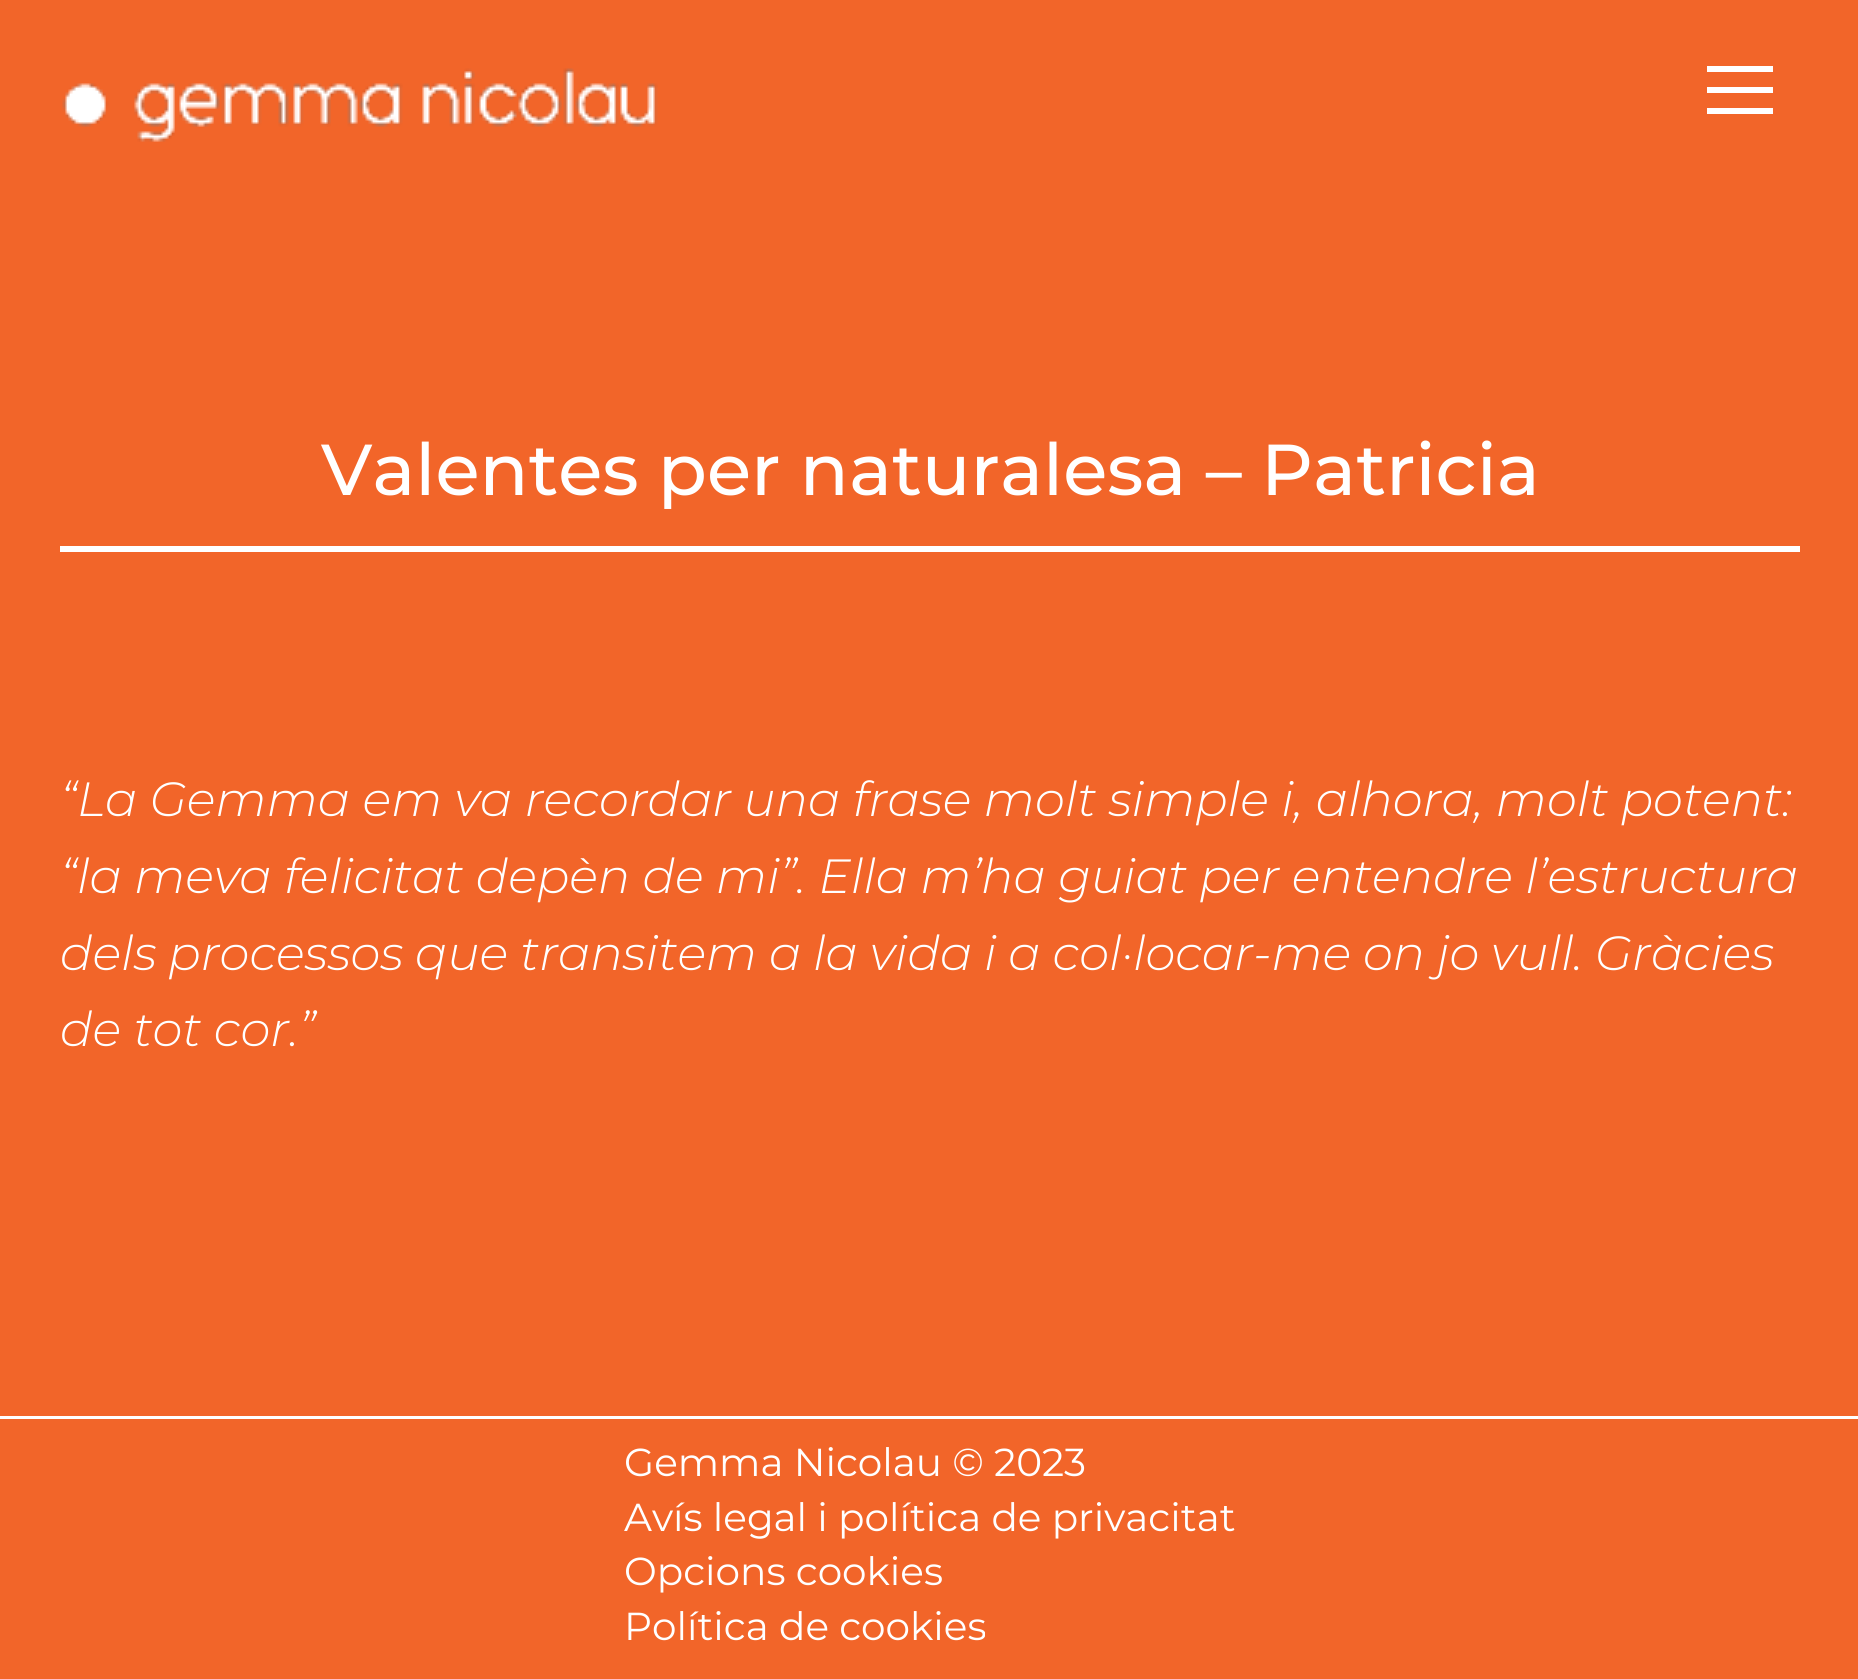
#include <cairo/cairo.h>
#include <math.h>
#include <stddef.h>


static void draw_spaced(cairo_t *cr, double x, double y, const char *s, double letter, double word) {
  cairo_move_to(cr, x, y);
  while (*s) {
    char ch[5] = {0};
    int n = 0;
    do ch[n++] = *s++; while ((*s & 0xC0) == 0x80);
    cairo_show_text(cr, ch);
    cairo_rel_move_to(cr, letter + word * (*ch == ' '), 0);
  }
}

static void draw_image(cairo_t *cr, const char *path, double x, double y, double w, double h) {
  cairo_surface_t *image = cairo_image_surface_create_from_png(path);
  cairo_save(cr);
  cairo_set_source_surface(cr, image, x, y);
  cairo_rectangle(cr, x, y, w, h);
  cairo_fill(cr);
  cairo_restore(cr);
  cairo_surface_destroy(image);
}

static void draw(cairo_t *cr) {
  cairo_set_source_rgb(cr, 242 / 255.0, 101 / 255.0, 41 / 255.0);
  cairo_paint(cr);
  draw_image(cr, "images/1.png", 62, 68, 596, 74);
  cairo_set_source_rgb(cr, 1, 1, 1);
  cairo_rectangle(cr, 1707, 66, 66, 6);
  cairo_fill(cr);
  cairo_rectangle(cr, 1707, 87, 66, 6);
  cairo_fill(cr);
  cairo_rectangle(cr, 1707, 108, 66, 6);
  cairo_fill(cr);
  cairo_rectangle(cr, 60, 546, 1740, 6);
  cairo_fill(cr);
  cairo_rectangle(cr, 0, 1416, 1858, 3);
  cairo_fill(cr);
  cairo_select_font_face(cr, "Montserrat Medium", CAIRO_FONT_SLANT_NORMAL, CAIRO_FONT_WEIGHT_NORMAL);
  cairo_set_font_size(cr, 72);
  cairo_move_to(cr, 321, 495);
  cairo_show_text(cr, "Valentes per naturalesa – Patricia");
  cairo_select_font_face(cr, "Montserrat Thin", CAIRO_FONT_SLANT_ITALIC, CAIRO_FONT_WEIGHT_NORMAL);
  cairo_set_font_size(cr, 48);
  cairo_move_to(cr, 60, 816);
  cairo_show_text(cr, "“La Gemma em va recordar una frase molt simple i, alhora, molt potent:");
  cairo_move_to(cr, 60, 893);
  cairo_show_text(cr, "“la meva felicitat depèn de mi”. Ella m’ha guiat per entendre l’estructura");
  draw_spaced(cr, 60, 970, "dels processos que transitem a la vida i a col·locar-me on jo vull. Gràcies", 0, -0.6);
  cairo_move_to(cr, 60, 1046);
  cairo_show_text(cr, "de tot cor.”");
  cairo_select_font_face(cr, "Montserrat", CAIRO_FONT_SLANT_NORMAL, CAIRO_FONT_WEIGHT_NORMAL);
  cairo_set_font_size(cr, 39);
  cairo_move_to(cr, 624, 1476);
  cairo_show_text(cr, "Gemma Nicolau © 2023");
  cairo_move_to(cr, 624, 1531);
  cairo_show_text(cr, "Avís legal i política de privacitat");
  cairo_move_to(cr, 624, 1585);
  cairo_show_text(cr, "Opcions cookies");
  cairo_move_to(cr, 624, 1640);
  cairo_show_text(cr, "Política de cookies");
}

int main(void) {
  cairo_surface_t *surface = cairo_image_surface_create(CAIRO_FORMAT_RGB24, 1858, 1679);
  cairo_t *cr = cairo_create(surface);
  cairo_font_options_t *options = cairo_font_options_create();
  cairo_font_options_set_hint_metrics(options, CAIRO_HINT_METRICS_OFF);
  cairo_font_options_set_hint_style(options, CAIRO_HINT_STYLE_NONE);
  cairo_set_font_options(cr, options);
  cairo_set_miter_limit(cr, 4);
  draw(cr);
  cairo_surface_write_to_png(surface, "out.png");
  cairo_font_options_destroy(options);
  cairo_destroy(cr);
  cairo_surface_destroy(surface);
  return 0;
}
